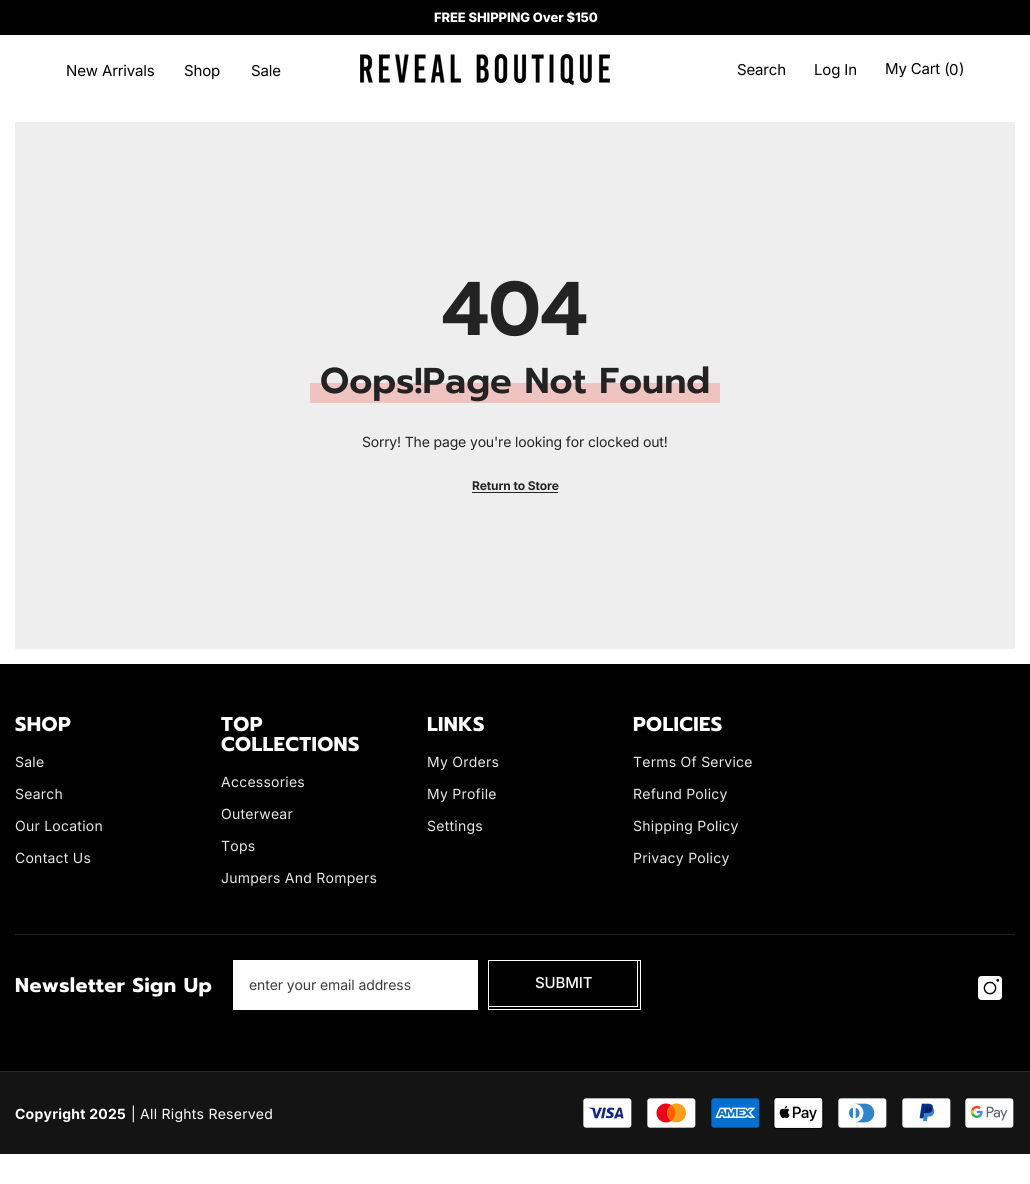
#include <cairo/cairo.h>
#include <math.h>
#include <stddef.h>


static void draw_spaced(cairo_t *cr, double x, double y, const char *s, double letter, double word) {
  cairo_move_to(cr, x, y);
  while (*s) {
    char ch[5] = {0};
    int n = 0;
    do ch[n++] = *s++; while ((*s & 0xC0) == 0x80);
    cairo_show_text(cr, ch);
    cairo_rel_move_to(cr, letter + word * (*ch == ' '), 0);
  }
}

static void draw_image(cairo_t *cr, const char *path, double x, double y, double w, double h) {
  cairo_surface_t *image = cairo_image_surface_create_from_png(path);
  cairo_save(cr);
  cairo_set_source_surface(cr, image, x, y);
  cairo_rectangle(cr, x, y, w, h);
  cairo_fill(cr);
  cairo_restore(cr);
  cairo_surface_destroy(image);
}

static void draw(cairo_t *cr) {
  cairo_set_source_rgb(cr, 1, 1, 1);
  cairo_paint(cr);
  cairo_set_source_rgb(cr, 0, 0, 0);
  cairo_rectangle(cr, 0, 0, 1030, 35);
  cairo_fill(cr);
  draw_image(cr, "images/1.png", 360, 54, 250, 31);
  cairo_set_source_rgb(cr, 238 / 255.0, 238 / 255.0, 238 / 255.0);
  cairo_rectangle(cr, 15, 122, 1000, 527);
  cairo_fill(cr);
  cairo_set_source_rgb(cr, 239 / 255.0, 195 / 255.0, 192 / 255.0);
  cairo_rectangle(cr, 310, 383, 410, 20);
  cairo_fill(cr);
  cairo_set_source_rgb(cr, 35 / 255.0, 35 / 255.0, 35 / 255.0);
  cairo_rectangle(cr, 472, 492, 86, 1);
  cairo_fill(cr);
  cairo_set_source_rgb(cr, 0, 0, 0);
  cairo_rectangle(cr, 0, 664, 1030, 407);
  cairo_fill(cr);
  cairo_set_source_rgb(cr, 35 / 255.0, 35 / 255.0, 35 / 255.0);
  cairo_rectangle(cr, 15, 934, 1000, 1);
  cairo_fill(cr);
  cairo_set_source_rgb(cr, 1, 1, 1);
  cairo_rectangle(cr, 233, 960, 245, 50);
  cairo_fill(cr);
  cairo_rectangle(cr, 488.5, 960.5, 149, 46);
  cairo_set_line_width(cr, 1);
  cairo_stroke(cr);
  cairo_rectangle(cr, 488.5, 960.5, 152, 49);
  cairo_stroke(cr);
  draw_image(cr, "images/2.png", 978, 976, 24, 24);
  cairo_set_source_rgb(cr, 20 / 255.0, 20 / 255.0, 20 / 255.0);
  cairo_rectangle(cr, 0, 1072, 1030, 82);
  cairo_fill(cr);
  cairo_set_source_rgb(cr, 40 / 255.0, 40 / 255.0, 40 / 255.0);
  cairo_rectangle(cr, 0, 1071, 1030, 1);
  cairo_fill(cr);
  draw_image(cr, "images/3.png", 583, 1098, 49, 30);
  draw_image(cr, "images/4.png", 647, 1098, 49, 30);
  draw_image(cr, "images/5.png", 711, 1098, 49, 30);
  draw_image(cr, "images/6.png", 773, 1097, 51, 32);
  draw_image(cr, "images/7.png", 838, 1098, 49, 30);
  draw_image(cr, "images/8.png", 902, 1098, 49, 30);
  draw_image(cr, "images/9.png", 965, 1098, 49, 30);
  cairo_select_font_face(cr, "Inter ExtraBold", CAIRO_FONT_SLANT_NORMAL, CAIRO_FONT_WEIGHT_NORMAL);
  cairo_set_font_size(cr, 13);
  cairo_set_source_rgb(cr, 1, 1, 1);
  draw_spaced(cr, 434, 22, "FREE SHIPPING Over $150", -0.1, 0);
  cairo_select_font_face(cr, "Inter", CAIRO_FONT_SLANT_NORMAL, CAIRO_FONT_WEIGHT_NORMAL);
  cairo_set_font_size(cr, 15);
  cairo_set_source_rgb(cr, 0, 0, 0);
  draw_spaced(cr, 66, 76, "New Arrivals", -0.15, 0);
  draw_spaced(cr, 184, 76, "Shop", -0.15, 0);
  draw_spaced(cr, 251, 76, "Sale", -0.15, 0);
  draw_spaced(cr, 737, 75, "Search", -0.15, 0);
  draw_spaced(cr, 814, 75, "Log In", -0.15, 0);
  draw_spaced(cr, 885, 74, "My Cart (", -0.15, 0);
  draw_spaced(cr, 949, 75, "0", -0.15, 0);
  draw_spaced(cr, 959, 74, ")", -0.15, 0);
  cairo_select_font_face(cr, "Prompt SemiBold", CAIRO_FONT_SLANT_NORMAL, CAIRO_FONT_WEIGHT_NORMAL);
  cairo_set_font_size(cr, 76);
  cairo_set_source_rgb(cr, 35 / 255.0, 35 / 255.0, 35 / 255.0);
  cairo_move_to(cr, 442, 335);
  cairo_show_text(cr, "404");
  cairo_set_font_size(cr, 36);
  cairo_move_to(cr, 320, 393);
  cairo_show_text(cr, "Oops!Page Not Found");
  cairo_select_font_face(cr, "Inter", CAIRO_FONT_SLANT_NORMAL, CAIRO_FONT_WEIGHT_NORMAL);
  cairo_set_font_size(cr, 14);
  draw_spaced(cr, 362, 447, "Sorry! The page you're looking for clocked out!", -0.15, 0);
  cairo_select_font_face(cr, "Inter", CAIRO_FONT_SLANT_NORMAL, CAIRO_FONT_WEIGHT_BOLD);
  cairo_set_font_size(cr, 12);
  draw_spaced(cr, 472, 490, "Return to Store", -0.1, 0);
  cairo_select_font_face(cr, "Prompt", CAIRO_FONT_SLANT_NORMAL, CAIRO_FONT_WEIGHT_BOLD);
  cairo_set_font_size(cr, 20);
  cairo_set_source_rgb(cr, 1, 1, 1);
  draw_spaced(cr, 15, 731, "SHOP", 0.4, 0);
  cairo_select_font_face(cr, "Inter", CAIRO_FONT_SLANT_NORMAL, CAIRO_FONT_WEIGHT_NORMAL);
  cairo_set_font_size(cr, 14);
  cairo_set_source_rgb(cr, 232 / 255.0, 232 / 255.0, 232 / 255.0);
  draw_spaced(cr, 15, 767, "Sale", 0.25, 0);
  draw_spaced(cr, 15, 799, "Search", 0.25, 0);
  draw_spaced(cr, 15, 831, "Our Location", 0.25, 0);
  draw_spaced(cr, 15, 863, "Contact Us", 0.25, 0);
  cairo_select_font_face(cr, "Prompt", CAIRO_FONT_SLANT_NORMAL, CAIRO_FONT_WEIGHT_BOLD);
  cairo_set_font_size(cr, 20);
  cairo_set_source_rgb(cr, 1, 1, 1);
  draw_spaced(cr, 221, 731, "TOP", 0.4, 0);
  draw_spaced(cr, 221, 751, "COLLECTIONS", 0.4, 0);
  cairo_select_font_face(cr, "Inter", CAIRO_FONT_SLANT_NORMAL, CAIRO_FONT_WEIGHT_NORMAL);
  cairo_set_font_size(cr, 14);
  cairo_set_source_rgb(cr, 232 / 255.0, 232 / 255.0, 232 / 255.0);
  draw_spaced(cr, 221, 787, "Accessories", 0.25, 0);
  draw_spaced(cr, 221, 819, "Outerwear", 0.25, 0);
  draw_spaced(cr, 221, 851, "Tops", 0.25, 0);
  draw_spaced(cr, 221, 883, "Jumpers And Rompers", 0.25, 0);
  cairo_select_font_face(cr, "Prompt", CAIRO_FONT_SLANT_NORMAL, CAIRO_FONT_WEIGHT_BOLD);
  cairo_set_font_size(cr, 20);
  cairo_set_source_rgb(cr, 1, 1, 1);
  draw_spaced(cr, 427, 731, "LINKS", 0.4, 0);
  cairo_select_font_face(cr, "Inter", CAIRO_FONT_SLANT_NORMAL, CAIRO_FONT_WEIGHT_NORMAL);
  cairo_set_font_size(cr, 14);
  cairo_set_source_rgb(cr, 232 / 255.0, 232 / 255.0, 232 / 255.0);
  draw_spaced(cr, 427, 767, "My Orders", 0.25, 0);
  draw_spaced(cr, 427, 799, "My Profile", 0.25, 0);
  draw_spaced(cr, 427, 831, "Settings", 0.25, 0);
  cairo_select_font_face(cr, "Prompt", CAIRO_FONT_SLANT_NORMAL, CAIRO_FONT_WEIGHT_BOLD);
  cairo_set_font_size(cr, 20);
  cairo_set_source_rgb(cr, 1, 1, 1);
  draw_spaced(cr, 633, 731, "POLICIES", 0.4, 0);
  cairo_select_font_face(cr, "Inter", CAIRO_FONT_SLANT_NORMAL, CAIRO_FONT_WEIGHT_NORMAL);
  cairo_set_font_size(cr, 14);
  cairo_set_source_rgb(cr, 232 / 255.0, 232 / 255.0, 232 / 255.0);
  draw_spaced(cr, 633, 767, "Terms Of Service", 0.25, 0);
  draw_spaced(cr, 633, 799, "Refund Policy", 0.25, 0);
  draw_spaced(cr, 633, 831, "Shipping Policy", 0.25, 0);
  draw_spaced(cr, 633, 863, "Privacy Policy", 0.25, 0);
  cairo_select_font_face(cr, "Prompt", CAIRO_FONT_SLANT_NORMAL, CAIRO_FONT_WEIGHT_BOLD);
  cairo_set_font_size(cr, 20);
  cairo_set_source_rgb(cr, 1, 1, 1);
  draw_spaced(cr, 15, 992, "Newsletter Sign Up", 0.4, 0);
  cairo_select_font_face(cr, "Inter", CAIRO_FONT_SLANT_NORMAL, CAIRO_FONT_WEIGHT_NORMAL);
  cairo_set_font_size(cr, 14);
  cairo_set_source_rgb(cr, 60 / 255.0, 60 / 255.0, 60 / 255.0);
  draw_spaced(cr, 249, 990, "enter your email address", -0.1, 0);
  cairo_select_font_face(cr, "Inter Medium", CAIRO_FONT_SLANT_NORMAL, CAIRO_FONT_WEIGHT_NORMAL);
  cairo_set_font_size(cr, 15);
  cairo_set_source_rgb(cr, 1, 1, 1);
  draw_spaced(cr, 535, 988, "SUBMIT", -0.15, 0);
  cairo_select_font_face(cr, "Inter", CAIRO_FONT_SLANT_NORMAL, CAIRO_FONT_WEIGHT_BOLD);
  cairo_set_font_size(cr, 14);
  draw_spaced(cr, 15, 1119, "Copyright 2025", 0.25, 0);
  cairo_select_font_face(cr, "Inter", CAIRO_FONT_SLANT_NORMAL, CAIRO_FONT_WEIGHT_NORMAL);
  draw_spaced(cr, 131, 1119, "| All Rights Reserved", 0.25, 0);
}

int main(void) {
  cairo_surface_t *surface = cairo_image_surface_create(CAIRO_FORMAT_RGB24, 1030, 1184);
  cairo_t *cr = cairo_create(surface);
  cairo_font_options_t *options = cairo_font_options_create();
  cairo_font_options_set_hint_metrics(options, CAIRO_HINT_METRICS_OFF);
  cairo_font_options_set_hint_style(options, CAIRO_HINT_STYLE_NONE);
  cairo_set_font_options(cr, options);
  cairo_set_miter_limit(cr, 4);
  draw(cr);
  cairo_surface_write_to_png(surface, "out.png");
  cairo_font_options_destroy(options);
  cairo_destroy(cr);
  cairo_surface_destroy(surface);
  return 0;
}
